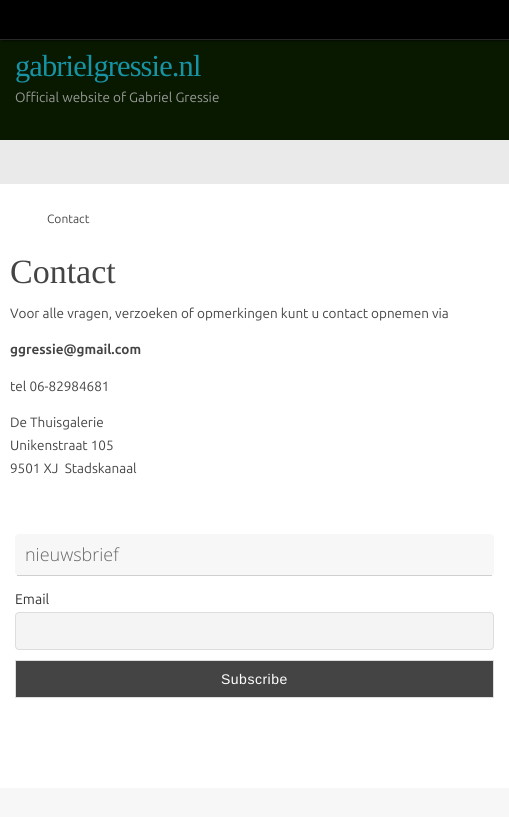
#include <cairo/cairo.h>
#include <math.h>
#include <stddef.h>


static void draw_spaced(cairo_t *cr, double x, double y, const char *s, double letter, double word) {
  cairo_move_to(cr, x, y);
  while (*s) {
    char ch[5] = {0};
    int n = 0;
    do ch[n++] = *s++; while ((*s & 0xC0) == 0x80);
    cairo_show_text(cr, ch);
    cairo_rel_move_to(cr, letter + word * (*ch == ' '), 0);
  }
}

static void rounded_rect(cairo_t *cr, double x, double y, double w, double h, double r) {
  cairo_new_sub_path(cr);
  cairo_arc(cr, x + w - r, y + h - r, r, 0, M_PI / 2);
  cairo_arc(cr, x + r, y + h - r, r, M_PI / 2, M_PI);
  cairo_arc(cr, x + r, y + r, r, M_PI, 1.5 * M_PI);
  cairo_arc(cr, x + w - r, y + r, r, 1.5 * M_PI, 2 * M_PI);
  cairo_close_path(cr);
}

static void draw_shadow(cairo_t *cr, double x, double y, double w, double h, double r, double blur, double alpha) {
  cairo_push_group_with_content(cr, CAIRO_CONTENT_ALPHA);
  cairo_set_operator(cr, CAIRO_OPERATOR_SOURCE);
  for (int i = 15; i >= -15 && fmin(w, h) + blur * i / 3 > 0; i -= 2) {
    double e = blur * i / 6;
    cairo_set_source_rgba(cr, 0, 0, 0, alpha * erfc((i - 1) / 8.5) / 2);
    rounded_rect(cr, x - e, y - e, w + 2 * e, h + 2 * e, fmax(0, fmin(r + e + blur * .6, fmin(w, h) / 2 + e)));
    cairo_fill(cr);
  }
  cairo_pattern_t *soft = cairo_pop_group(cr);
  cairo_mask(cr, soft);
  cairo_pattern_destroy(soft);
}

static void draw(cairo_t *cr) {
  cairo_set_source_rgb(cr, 8 / 255.0, 25 / 255.0, 0);
  cairo_paint(cr);
  cairo_set_source_rgb(cr, 0, 0, 0);
  draw_shadow(cr, 3, 0, 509, 40, 0, 1.5, 1);
  cairo_set_source_rgb(cr, 0, 0, 0);
  cairo_rectangle(cr, 0, 0, 509, 39);
  cairo_fill(cr);
  cairo_set_source_rgb(cr, 40 / 255.0, 40 / 255.0, 40 / 255.0);
  cairo_rectangle(cr, 0, 39, 509, 1);
  cairo_fill(cr);
  cairo_set_source_rgb(cr, 234 / 255.0, 234 / 255.0, 234 / 255.0);
  cairo_rectangle(cr, 0, 140, 509, 44);
  cairo_fill(cr);
  cairo_set_source_rgb(cr, 1, 1, 1);
  cairo_rectangle(cr, 0, 184, 509, 604);
  cairo_fill(cr);
  cairo_set_source_rgb(cr, 247 / 255.0, 247 / 255.0, 247 / 255.0);
  rounded_rect(cr, 15, 534, 479, 42, 4);
  cairo_fill(cr);
  cairo_set_source_rgb(cr, 207 / 255.0, 207 / 255.0, 207 / 255.0);
  cairo_rectangle(cr, 17, 575, 475, 1);
  cairo_fill(cr);
  cairo_set_source_rgb(cr, 244 / 255.0, 244 / 255.0, 244 / 255.0);
  rounded_rect(cr, 15.5, 612.5, 478, 37, 3.5);
  cairo_fill_preserve(cr);
  cairo_set_source_rgb(cr, 221 / 255.0, 221 / 255.0, 221 / 255.0);
  cairo_set_line_width(cr, 1);
  cairo_stroke(cr);
  cairo_set_source_rgb(cr, 68 / 255.0, 68 / 255.0, 68 / 255.0);
  cairo_rectangle(cr, 15.5, 660.5, 478, 37);
  cairo_fill_preserve(cr);
  cairo_set_source_rgb(cr, 221 / 255.0, 221 / 255.0, 221 / 255.0);
  cairo_stroke(cr);
  cairo_set_source_rgb(cr, 247 / 255.0, 247 / 255.0, 247 / 255.0);
  cairo_rectangle(cr, 0, 788, 509, 29);
  cairo_fill(cr);
  cairo_select_font_face(cr, "Liberation Serif", CAIRO_FONT_SLANT_NORMAL, CAIRO_FONT_WEIGHT_NORMAL);
  cairo_set_font_size(cr, 30.5);
  cairo_set_source_rgb(cr, 22 / 255.0, 147 / 255.0, 165 / 255.0);
  draw_spaced(cr, 15, 76, "gabrielgressie.nl", -0.9, 0);
  cairo_select_font_face(cr, "Ubuntu", CAIRO_FONT_SLANT_NORMAL, CAIRO_FONT_WEIGHT_NORMAL);
  cairo_set_font_size(cr, 13.5);
  cairo_set_source_rgb(cr, 153 / 255.0, 153 / 255.0, 153 / 255.0);
  cairo_move_to(cr, 15, 102);
  cairo_show_text(cr, "Official website of Gabriel Gressie");
  cairo_set_font_size(cr, 12);
  cairo_set_source_rgb(cr, 68 / 255.0, 68 / 255.0, 68 / 255.0);
  cairo_move_to(cr, 47, 223);
  cairo_show_text(cr, "Contact");
  cairo_select_font_face(cr, "Liberation Serif", CAIRO_FONT_SLANT_NORMAL, CAIRO_FONT_WEIGHT_NORMAL);
  cairo_set_font_size(cr, 34);
  cairo_move_to(cr, 10, 283);
  cairo_show_text(cr, "Contact");
  cairo_select_font_face(cr, "Ubuntu", CAIRO_FONT_SLANT_NORMAL, CAIRO_FONT_WEIGHT_NORMAL);
  cairo_set_font_size(cr, 13.5);
  cairo_move_to(cr, 10, 318);
  cairo_show_text(cr, "Voor alle vragen, verzoeken of opmerkingen kunt u contact opnemen via");
  cairo_select_font_face(cr, "Ubuntu", CAIRO_FONT_SLANT_NORMAL, CAIRO_FONT_WEIGHT_BOLD);
  cairo_move_to(cr, 10, 354);
  cairo_show_text(cr, "ggressie@gmail.com");
  cairo_select_font_face(cr, "Ubuntu", CAIRO_FONT_SLANT_NORMAL, CAIRO_FONT_WEIGHT_NORMAL);
  cairo_move_to(cr, 10, 391);
  cairo_show_text(cr, "tel 06-82984681");
  cairo_move_to(cr, 10, 427);
  cairo_show_text(cr, "De Thuisgalerie");
  cairo_move_to(cr, 10, 450);
  cairo_show_text(cr, "Unikenstraat 105");
  cairo_move_to(cr, 10, 473);
  cairo_show_text(cr, "9501 XJ  Stadskanaal");
  cairo_select_font_face(cr, "Open Sans Light", CAIRO_FONT_SLANT_NORMAL, CAIRO_FONT_WEIGHT_NORMAL);
  cairo_set_font_size(cr, 18);
  cairo_set_source_rgb(cr, 102 / 255.0, 102 / 255.0, 102 / 255.0);
  cairo_move_to(cr, 25, 561);
  cairo_show_text(cr, "nieuwsbrief");
  cairo_select_font_face(cr, "Ubuntu", CAIRO_FONT_SLANT_NORMAL, CAIRO_FONT_WEIGHT_NORMAL);
  cairo_set_font_size(cr, 14);
  cairo_set_source_rgb(cr, 51 / 255.0, 51 / 255.0, 51 / 255.0);
  cairo_move_to(cr, 15, 604);
  cairo_show_text(cr, "Email");
  cairo_select_font_face(cr, "Liberation Sans", CAIRO_FONT_SLANT_NORMAL, CAIRO_FONT_WEIGHT_NORMAL);
  cairo_set_source_rgb(cr, 1, 1, 1);
  draw_spaced(cr, 221, 684, "Subscribe", 0.5, 0);
}

int main(void) {
  cairo_surface_t *surface = cairo_image_surface_create(CAIRO_FORMAT_RGB24, 509, 817);
  cairo_t *cr = cairo_create(surface);
  cairo_font_options_t *options = cairo_font_options_create();
  cairo_font_options_set_hint_metrics(options, CAIRO_HINT_METRICS_OFF);
  cairo_font_options_set_hint_style(options, CAIRO_HINT_STYLE_NONE);
  cairo_set_font_options(cr, options);
  cairo_set_miter_limit(cr, 4);
  draw(cr);
  cairo_surface_write_to_png(surface, "out.png");
  cairo_font_options_destroy(options);
  cairo_destroy(cr);
  cairo_surface_destroy(surface);
  return 0;
}
